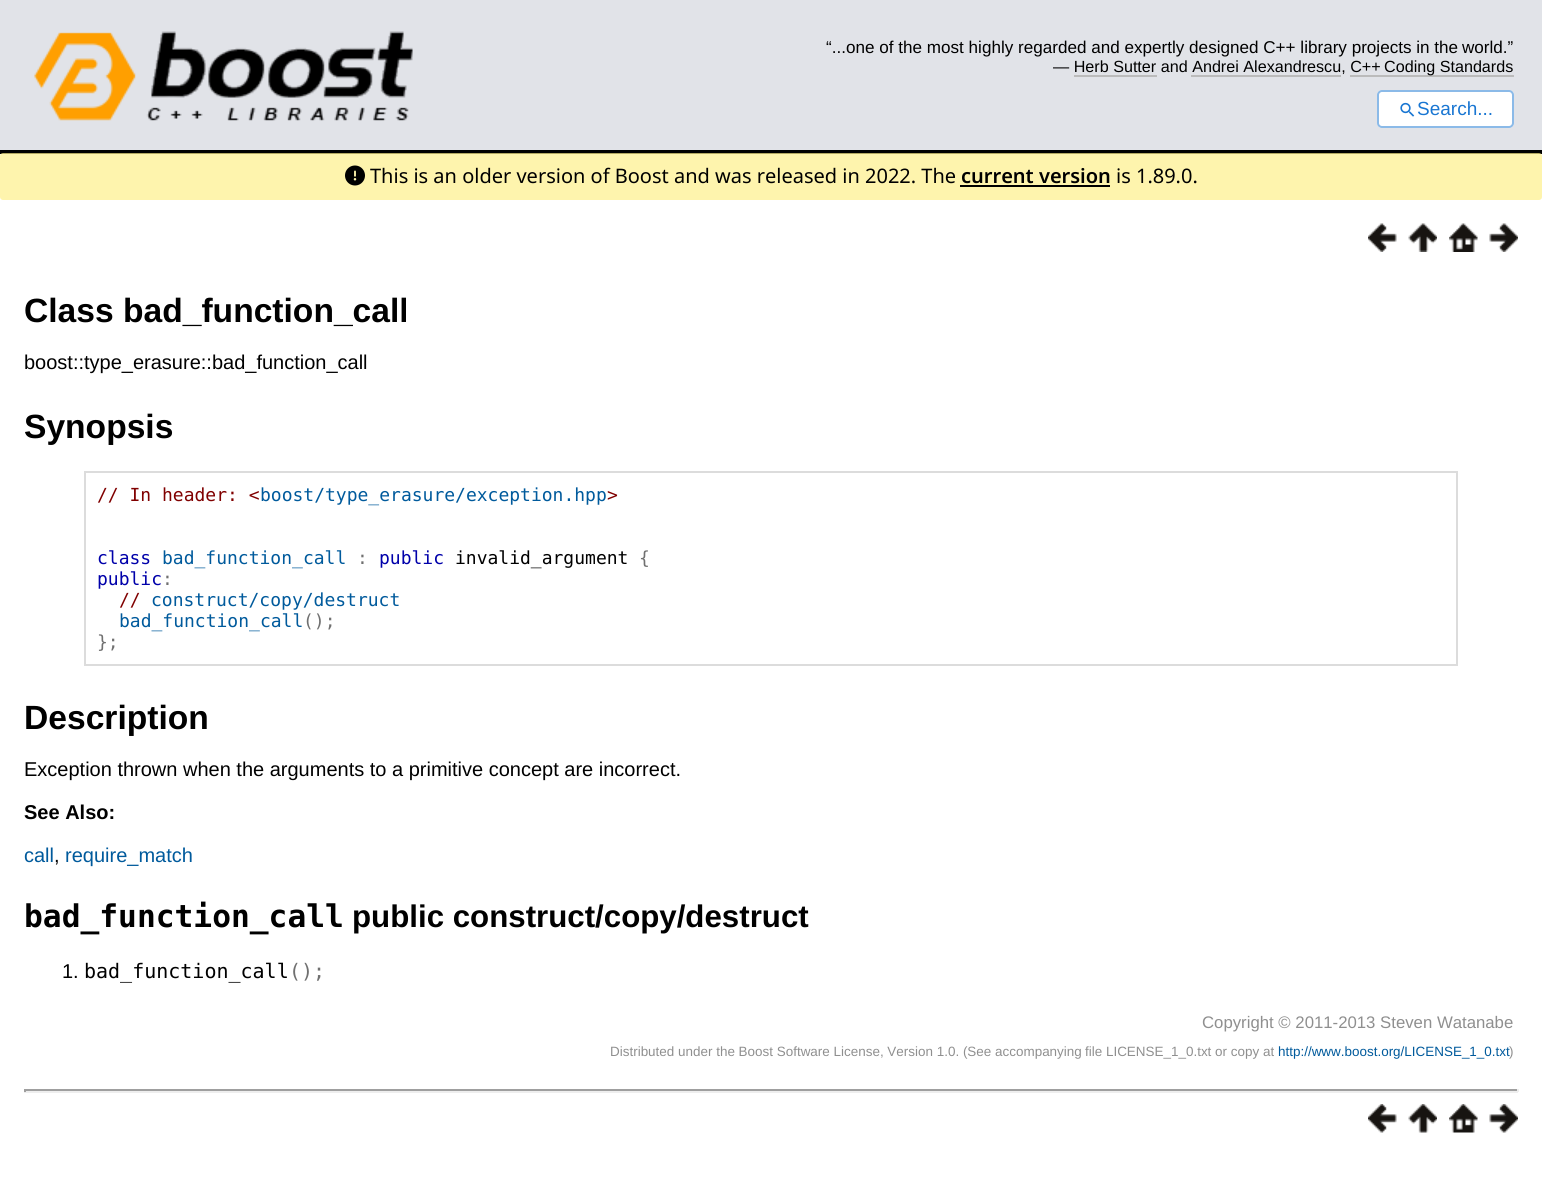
#include <cairo/cairo.h>
#include <math.h>
#include <stddef.h>


static void rounded_rect(cairo_t *cr, double x, double y, double w, double h, double r) {
  cairo_new_sub_path(cr);
  cairo_arc(cr, x + w - r, y + h - r, r, 0, M_PI / 2);
  cairo_arc(cr, x + r, y + h - r, r, M_PI / 2, M_PI);
  cairo_arc(cr, x + r, y + r, r, M_PI, 1.5 * M_PI);
  cairo_arc(cr, x + w - r, y + r, r, 1.5 * M_PI, 2 * M_PI);
  cairo_close_path(cr);
}

static void draw_image(cairo_t *cr, const char *path, double x, double y, double w, double h) {
  cairo_surface_t *image = cairo_image_surface_create_from_png(path);
  cairo_save(cr);
  cairo_set_source_surface(cr, image, x, y);
  cairo_rectangle(cr, x, y, w, h);
  cairo_fill(cr);
  cairo_restore(cr);
  cairo_surface_destroy(image);
}

static void draw(cairo_t *cr) {
  cairo_set_source_rgb(cr, 1, 1, 1);
  cairo_paint(cr);
  cairo_set_source_rgb(cr, 225 / 255.0, 227 / 255.0, 232 / 255.0);
  cairo_rectangle(cr, 0, 0, 1542, 150);
  cairo_fill(cr);
  cairo_set_source_rgb(cr, 0, 0, 0);
  cairo_rectangle(cr, 0, 150, 1542, 4);
  cairo_fill(cr);
  draw_image(cr, "images/1.png", 34, 31, 379, 90);
  cairo_set_source_rgb(cr, 187 / 255.0, 187 / 255.0, 187 / 255.0);
  cairo_rectangle(cr, 1350, 75, 164, 2);
  cairo_fill(cr);
  cairo_rectangle(cr, 1074, 75, 83, 2);
  cairo_fill(cr);
  cairo_rectangle(cr, 1191, 75, 150, 2);
  cairo_fill(cr);
  cairo_set_source_rgb(cr, 1, 1, 1);
  rounded_rect(cr, 1377, 90, 137, 38, 5);
  cairo_fill(cr);
  rounded_rect(cr, 1378, 91, 135, 36, 4);
  cairo_set_source_rgba(cr, 25 / 255.0, 118 / 255.0, 210 / 255.0, 0.5);
  cairo_stroke(cr);
  draw_image(cr, "images/2.png", 1400, 102, 15, 15);
  cairo_set_source_rgba(cr, 254 / 255.0, 240 / 255.0, 139 / 255.0, 0.7);
  rounded_rect(cr, 0, 153, 1542, 47, 3);
  cairo_fill(cr);
  draw_image(cr, "images/3.png", 345, 165, 20, 21);
  cairo_set_source_rgb(cr, 0, 0, 0);
  cairo_rectangle(cr, 960, 185, 150, 2);
  cairo_fill(cr);
  draw_image(cr, "images/4.png", 1368, 223, 29, 29);
  draw_image(cr, "images/5.png", 1408, 223, 29, 29);
  draw_image(cr, "images/6.png", 1449, 223, 29, 29);
  draw_image(cr, "images/7.png", 1489, 223, 29, 29);
  cairo_rectangle(cr, 85, 472, 1372, 193);
  cairo_set_source_rgb(cr, 220 / 255.0, 220 / 255.0, 220 / 255.0);
  cairo_stroke(cr);
  cairo_set_source_rgb(cr, 159 / 255.0, 159 / 255.0, 159 / 255.0);
  cairo_rectangle(cr, 24, 1089, 1494, 2);
  cairo_fill(cr);
  cairo_set_source_rgb(cr, 238 / 255.0, 238 / 255.0, 238 / 255.0);
  cairo_rectangle(cr, 1517, 1089, 2, 3);
  cairo_fill(cr);
  cairo_rectangle(cr, 24, 1091, 1494, 2);
  cairo_fill(cr);
  cairo_set_source_rgb(cr, 159 / 255.0, 159 / 255.0, 159 / 255.0);
  cairo_rectangle(cr, 24, 1089, 2, 3);
  cairo_fill(cr);
  draw_image(cr, "images/8.png", 1368, 1104, 29, 29);
  draw_image(cr, "images/9.png", 1408, 1104, 29, 29);
  draw_image(cr, "images/10.png", 1449, 1104, 29, 29);
  draw_image(cr, "images/11.png", 1489, 1104, 29, 29);
  cairo_select_font_face(cr, "Liberation Sans", CAIRO_FONT_SLANT_NORMAL, CAIRO_FONT_WEIGHT_NORMAL);
  cairo_set_font_size(cr, 17.1);
  cairo_set_source_rgb(cr, 0, 0, 0);
  cairo_move_to(cr, 826, 53);
  cairo_show_text(cr, "“...one of the most highly regarded and expertly designed C++ library projects in the");
  cairo_move_to(cr, 1462, 53);
  cairo_show_text(cr, "world.”");
  cairo_set_font_size(cr, 16.15);
  cairo_move_to(cr, 1053, 72);
  cairo_show_text(cr, "— Herb Sutter and Andrei Alexandrescu, C++");
  cairo_move_to(cr, 1384, 72);
  cairo_show_text(cr, "Coding Standards");
  cairo_set_font_size(cr, 19);
  cairo_set_source_rgb(cr, 25 / 255.0, 118 / 255.0, 210 / 255.0);
  cairo_move_to(cr, 1417, 115);
  cairo_show_text(cr, "Search...");
  cairo_select_font_face(cr, "Noto Sans", CAIRO_FONT_SLANT_NORMAL, CAIRO_FONT_WEIGHT_NORMAL);
  cairo_set_font_size(cr, 20);
  cairo_set_source_rgb(cr, 0, 0, 0);
  cairo_move_to(cr, 370, 183);
  cairo_show_text(cr, "This is an older version of Boost and was released in 2022. The");
  cairo_select_font_face(cr, "Noto Sans SemiBold", CAIRO_FONT_SLANT_NORMAL, CAIRO_FONT_WEIGHT_NORMAL);
  cairo_move_to(cr, 961, 183);
  cairo_show_text(cr, "current version");
  cairo_select_font_face(cr, "Noto Sans", CAIRO_FONT_SLANT_NORMAL, CAIRO_FONT_WEIGHT_NORMAL);
  cairo_move_to(cr, 1116, 183);
  cairo_show_text(cr, "is 1.89.0.");
  cairo_select_font_face(cr, "Liberation Sans", CAIRO_FONT_SLANT_NORMAL, CAIRO_FONT_WEIGHT_BOLD);
  cairo_set_font_size(cr, 33.6);
  cairo_move_to(cr, 24, 322);
  cairo_show_text(cr, "Class bad_function_call");
  cairo_select_font_face(cr, "Liberation Sans", CAIRO_FONT_SLANT_NORMAL, CAIRO_FONT_WEIGHT_NORMAL);
  cairo_set_font_size(cr, 20);
  cairo_move_to(cr, 24, 369);
  cairo_show_text(cr, "boost::type_erasure::bad_function_call");
  cairo_select_font_face(cr, "Liberation Sans", CAIRO_FONT_SLANT_NORMAL, CAIRO_FONT_WEIGHT_BOLD);
  cairo_set_font_size(cr, 33.6);
  cairo_move_to(cr, 24, 438);
  cairo_show_text(cr, "Synopsis");
  cairo_select_font_face(cr, "DejaVu Sans Mono", CAIRO_FONT_SLANT_NORMAL, CAIRO_FONT_WEIGHT_NORMAL);
  cairo_set_font_size(cr, 18);
  cairo_set_source_rgb(cr, 128 / 255.0, 0, 0);
  cairo_move_to(cr, 97, 501);
  cairo_show_text(cr, "// In header: <");
  cairo_set_source_rgb(cr, 0, 90 / 255.0, 156 / 255.0);
  cairo_move_to(cr, 260, 501);
  cairo_show_text(cr, "boost/type_erasure/exception.hpp");
  cairo_set_source_rgb(cr, 128 / 255.0, 0, 0);
  cairo_move_to(cr, 607, 501);
  cairo_show_text(cr, ">");
  cairo_set_source_rgb(cr, 0, 0, 170 / 255.0);
  cairo_move_to(cr, 97, 564);
  cairo_show_text(cr, "class");
  cairo_set_source_rgb(cr, 0, 90 / 255.0, 156 / 255.0);
  cairo_move_to(cr, 162, 564);
  cairo_show_text(cr, "bad_function_call");
  cairo_set_source_rgb(cr, 112 / 255.0, 112 / 255.0, 112 / 255.0);
  cairo_move_to(cr, 357, 564);
  cairo_show_text(cr, ":");
  cairo_set_source_rgb(cr, 0, 0, 170 / 255.0);
  cairo_move_to(cr, 379, 564);
  cairo_show_text(cr, "public");
  cairo_set_source_rgb(cr, 0, 0, 0);
  cairo_move_to(cr, 455, 564);
  cairo_show_text(cr, "invalid_argument");
  cairo_set_source_rgb(cr, 112 / 255.0, 112 / 255.0, 112 / 255.0);
  cairo_move_to(cr, 639, 564);
  cairo_show_text(cr, "{");
  cairo_set_source_rgb(cr, 0, 0, 170 / 255.0);
  cairo_move_to(cr, 97, 585);
  cairo_show_text(cr, "public");
  cairo_set_source_rgb(cr, 112 / 255.0, 112 / 255.0, 112 / 255.0);
  cairo_move_to(cr, 162, 585);
  cairo_show_text(cr, ":");
  cairo_set_source_rgb(cr, 128 / 255.0, 0, 0);
  cairo_move_to(cr, 119, 606);
  cairo_show_text(cr, "//");
  cairo_set_source_rgb(cr, 0, 90 / 255.0, 156 / 255.0);
  cairo_move_to(cr, 151, 606);
  cairo_show_text(cr, "construct/copy/destruct");
  cairo_move_to(cr, 119, 627);
  cairo_show_text(cr, "bad_function_call");
  cairo_set_source_rgb(cr, 112 / 255.0, 112 / 255.0, 112 / 255.0);
  cairo_move_to(cr, 303, 627);
  cairo_show_text(cr, "();");
  cairo_move_to(cr, 97, 648);
  cairo_show_text(cr, "};");
  cairo_select_font_face(cr, "Liberation Sans", CAIRO_FONT_SLANT_NORMAL, CAIRO_FONT_WEIGHT_BOLD);
  cairo_set_font_size(cr, 33.6);
  cairo_set_source_rgb(cr, 0, 0, 0);
  cairo_move_to(cr, 24, 729);
  cairo_show_text(cr, "Description");
  cairo_select_font_face(cr, "Liberation Sans", CAIRO_FONT_SLANT_NORMAL, CAIRO_FONT_WEIGHT_NORMAL);
  cairo_set_font_size(cr, 20);
  cairo_move_to(cr, 24, 776);
  cairo_show_text(cr, "Exception thrown when the arguments to a primitive concept are incorrect.");
  cairo_select_font_face(cr, "Liberation Sans", CAIRO_FONT_SLANT_NORMAL, CAIRO_FONT_WEIGHT_BOLD);
  cairo_move_to(cr, 24, 819);
  cairo_show_text(cr, "See Also:");
  cairo_select_font_face(cr, "Liberation Sans", CAIRO_FONT_SLANT_NORMAL, CAIRO_FONT_WEIGHT_NORMAL);
  cairo_set_source_rgb(cr, 0, 90 / 255.0, 156 / 255.0);
  cairo_move_to(cr, 24, 862);
  cairo_show_text(cr, "call");
  cairo_set_source_rgb(cr, 0, 0, 0);
  cairo_move_to(cr, 54, 862);
  cairo_show_text(cr, ",");
  cairo_set_source_rgb(cr, 0, 90 / 255.0, 156 / 255.0);
  cairo_move_to(cr, 65, 862);
  cairo_show_text(cr, "require_match");
  cairo_select_font_face(cr, "DejaVu Sans Mono", CAIRO_FONT_SLANT_NORMAL, CAIRO_FONT_WEIGHT_BOLD);
  cairo_set_font_size(cr, 31.25);
  cairo_set_source_rgb(cr, 0, 0, 0);
  cairo_move_to(cr, 24, 927);
  cairo_show_text(cr, "bad_function_call");
  cairo_select_font_face(cr, "Liberation Sans", CAIRO_FONT_SLANT_NORMAL, CAIRO_FONT_WEIGHT_BOLD);
  cairo_move_to(cr, 352, 927);
  cairo_show_text(cr, "public construct/copy/destruct");
  cairo_select_font_face(cr, "Liberation Sans", CAIRO_FONT_SLANT_NORMAL, CAIRO_FONT_WEIGHT_NORMAL);
  cairo_set_font_size(cr, 20);
  cairo_move_to(cr, 62, 978);
  cairo_show_text(cr, "1.");
  cairo_select_font_face(cr, "DejaVu Sans Mono", CAIRO_FONT_SLANT_NORMAL, CAIRO_FONT_WEIGHT_NORMAL);
  cairo_move_to(cr, 84, 978);
  cairo_show_text(cr, "bad_function_call");
  cairo_set_source_rgb(cr, 112 / 255.0, 112 / 255.0, 112 / 255.0);
  cairo_move_to(cr, 289, 978);
  cairo_show_text(cr, "();");
  cairo_select_font_face(cr, "Liberation Sans", CAIRO_FONT_SLANT_NORMAL, CAIRO_FONT_WEIGHT_NORMAL);
  cairo_set_font_size(cr, 16.75);
  cairo_set_source_rgb(cr, 143 / 255.0, 143 / 255.0, 143 / 255.0);
  cairo_move_to(cr, 1202, 1028);
  cairo_show_text(cr, "Copyright © 2011-2013 Steven Watanabe");
  cairo_set_font_size(cr, 13.45);
  cairo_move_to(cr, 610, 1056);
  cairo_show_text(cr, "Distributed under the Boost Software License, Version 1.0. (See accompanying");
  cairo_move_to(cr, 1085, 1056);
  cairo_show_text(cr, "file LICENSE_1_0.txt or copy at");
  cairo_set_source_rgb(cr, 0, 90 / 255.0, 156 / 255.0);
  cairo_move_to(cr, 1278, 1056);
  cairo_show_text(cr, "http://www.boost.org/LICENSE_1_0.txt");
  cairo_set_source_rgb(cr, 143 / 255.0, 143 / 255.0, 143 / 255.0);
  cairo_move_to(cr, 1509, 1056);
  cairo_show_text(cr, ")");
}

int main(void) {
  cairo_surface_t *surface = cairo_image_surface_create(CAIRO_FORMAT_RGB24, 1542, 1193);
  cairo_t *cr = cairo_create(surface);
  cairo_font_options_t *options = cairo_font_options_create();
  cairo_font_options_set_hint_metrics(options, CAIRO_HINT_METRICS_OFF);
  cairo_font_options_set_hint_style(options, CAIRO_HINT_STYLE_NONE);
  cairo_set_font_options(cr, options);
  cairo_set_miter_limit(cr, 4);
  draw(cr);
  cairo_surface_write_to_png(surface, "out.png");
  cairo_font_options_destroy(options);
  cairo_destroy(cr);
  cairo_surface_destroy(surface);
  return 0;
}
